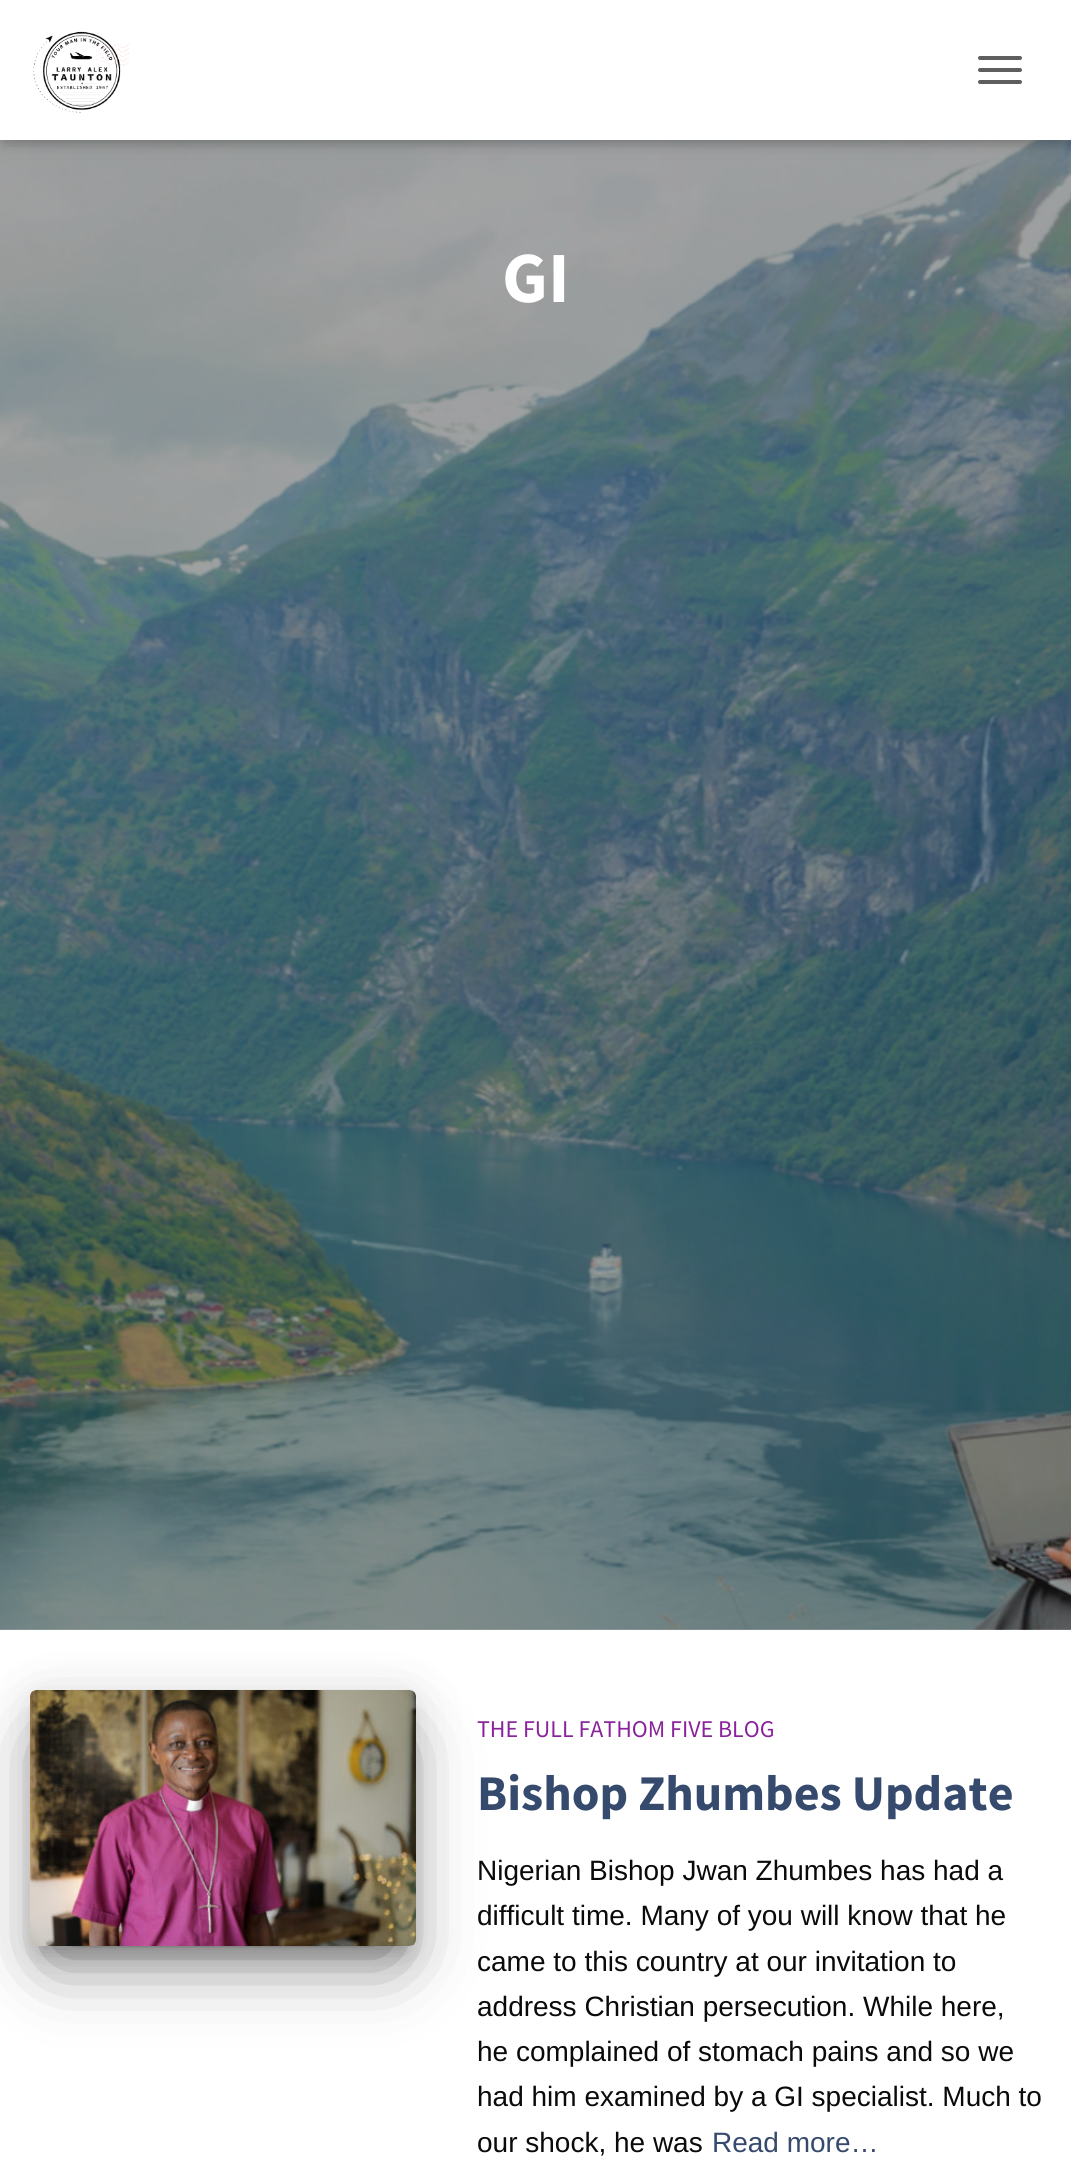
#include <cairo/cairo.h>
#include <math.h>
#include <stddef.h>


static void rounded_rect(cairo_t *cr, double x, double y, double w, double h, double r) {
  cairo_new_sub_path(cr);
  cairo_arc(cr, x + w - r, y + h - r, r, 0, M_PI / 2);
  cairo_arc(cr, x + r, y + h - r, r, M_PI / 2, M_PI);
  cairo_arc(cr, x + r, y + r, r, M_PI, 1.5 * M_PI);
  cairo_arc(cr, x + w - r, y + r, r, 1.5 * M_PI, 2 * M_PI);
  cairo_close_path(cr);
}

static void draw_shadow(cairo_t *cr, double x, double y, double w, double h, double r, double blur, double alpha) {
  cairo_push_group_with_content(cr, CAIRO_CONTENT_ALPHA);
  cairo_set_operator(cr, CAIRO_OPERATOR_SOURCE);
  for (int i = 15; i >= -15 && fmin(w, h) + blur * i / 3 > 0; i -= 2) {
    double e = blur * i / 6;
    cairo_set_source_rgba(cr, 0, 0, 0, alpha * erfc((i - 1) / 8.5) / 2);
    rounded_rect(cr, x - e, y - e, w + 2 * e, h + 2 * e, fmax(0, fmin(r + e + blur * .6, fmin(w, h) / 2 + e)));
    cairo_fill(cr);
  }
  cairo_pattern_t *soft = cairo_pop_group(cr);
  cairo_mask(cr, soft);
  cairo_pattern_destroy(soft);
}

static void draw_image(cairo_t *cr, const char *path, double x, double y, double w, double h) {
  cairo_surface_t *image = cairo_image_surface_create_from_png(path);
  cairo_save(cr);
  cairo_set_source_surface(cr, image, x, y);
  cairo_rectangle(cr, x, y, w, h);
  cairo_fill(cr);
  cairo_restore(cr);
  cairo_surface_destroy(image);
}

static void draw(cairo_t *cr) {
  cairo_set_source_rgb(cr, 1, 1, 1);
  cairo_paint(cr);
  draw_image(cr, "images/2.png", 0, 140, 1071, 1490);
  cairo_set_source_rgb(cr, 0, 0, 0);
  draw_shadow(cr, 4, 12, 1064, 132, 0, 5, 0.1);
  draw_shadow(cr, 0, 2, 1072, 140, 0, 10, 0.12);
  draw_shadow(cr, 12, 14, 1048, 116, 0, 10, 0.42);
  cairo_set_source_rgb(cr, 1, 1, 1);
  cairo_rectangle(cr, 0, 0, 1071, 140);
  cairo_fill(cr);
  draw_image(cr, "images/1.png", 33, 31, 97, 82);
  cairo_set_source_rgb(cr, 94 / 255.0, 94 / 255.0, 94 / 255.0);
  rounded_rect(cr, 978, 56, 44, 4, 2);
  cairo_fill(cr);
  rounded_rect(cr, 978, 68, 44, 4, 2);
  cairo_fill(cr);
  rounded_rect(cr, 978, 80, 44, 4, 2);
  cairo_fill(cr);
  cairo_set_source_rgb(cr, 0, 0, 0);
  draw_shadow(cr, 40, 1716, 366, 236, 0, 10, 0.2);
  draw_shadow(cr, 30, 1698, 386, 256, 6, 25, 0.12);
  draw_shadow(cr, 54, 1746, 338, 208, 0, 38, 0.56);
  draw_image(cr, "images/3.png", 30, 1690, 386, 256);
  cairo_select_font_face(cr, "Source Sans Pro", CAIRO_FONT_SLANT_NORMAL, CAIRO_FONT_WEIGHT_BOLD);
  cairo_set_font_size(cr, 72);
  cairo_set_source_rgb(cr, 1, 1, 1);
  cairo_move_to(cr, 502, 302);
  cairo_show_text(cr, "GI");
  cairo_select_font_face(cr, "Source Sans Pro", CAIRO_FONT_SLANT_NORMAL, CAIRO_FONT_WEIGHT_NORMAL);
  cairo_set_font_size(cr, 24);
  cairo_set_source_rgb(cr, 137 / 255.0, 34 / 255.0, 155 / 255.0);
  cairo_move_to(cr, 477, 1737);
  cairo_show_text(cr, "THE FULL FATHOM FIVE BLOG");
  cairo_select_font_face(cr, "Source Sans Pro", CAIRO_FONT_SLANT_NORMAL, CAIRO_FONT_WEIGHT_BOLD);
  cairo_set_font_size(cr, 50);
  cairo_set_source_rgb(cr, 54 / 255.0, 74 / 255.0, 109 / 255.0);
  cairo_move_to(cr, 477, 1810);
  cairo_show_text(cr, "Bishop Zhumbes Update");
  cairo_select_font_face(cr, "Liberation Sans", CAIRO_FONT_SLANT_NORMAL, CAIRO_FONT_WEIGHT_NORMAL);
  cairo_set_font_size(cr, 28);
  cairo_set_source_rgb(cr, 10 / 255.0, 10 / 255.0, 10 / 255.0);
  cairo_move_to(cr, 477, 1880);
  cairo_show_text(cr, "Nigerian Bishop Jwan Zhumbes has had a");
  cairo_move_to(cr, 477, 1925);
  cairo_show_text(cr, "difficult time. Many of you will know that he");
  cairo_move_to(cr, 477, 1971);
  cairo_show_text(cr, "came to this country at our invitation to");
  cairo_move_to(cr, 477, 2016);
  cairo_show_text(cr, "address Christian persecution. While here,");
  cairo_move_to(cr, 477, 2061);
  cairo_show_text(cr, "he complained of stomach pains and so we");
  cairo_move_to(cr, 477, 2106);
  cairo_show_text(cr, "had him examined by a GI specialist. Much to");
  cairo_move_to(cr, 477, 2152);
  cairo_show_text(cr, "our shock, he was");
  cairo_set_source_rgb(cr, 54 / 255.0, 74 / 255.0, 109 / 255.0);
  cairo_move_to(cr, 712, 2152);
  cairo_show_text(cr, "Read more…");
}

int main(void) {
  cairo_surface_t *surface = cairo_image_surface_create(CAIRO_FORMAT_RGB24, 1071, 2164);
  cairo_t *cr = cairo_create(surface);
  cairo_font_options_t *options = cairo_font_options_create();
  cairo_font_options_set_hint_metrics(options, CAIRO_HINT_METRICS_OFF);
  cairo_font_options_set_hint_style(options, CAIRO_HINT_STYLE_NONE);
  cairo_set_font_options(cr, options);
  cairo_set_miter_limit(cr, 4);
  draw(cr);
  cairo_surface_write_to_png(surface, "out.png");
  cairo_font_options_destroy(options);
  cairo_destroy(cr);
  cairo_surface_destroy(surface);
  return 0;
}
